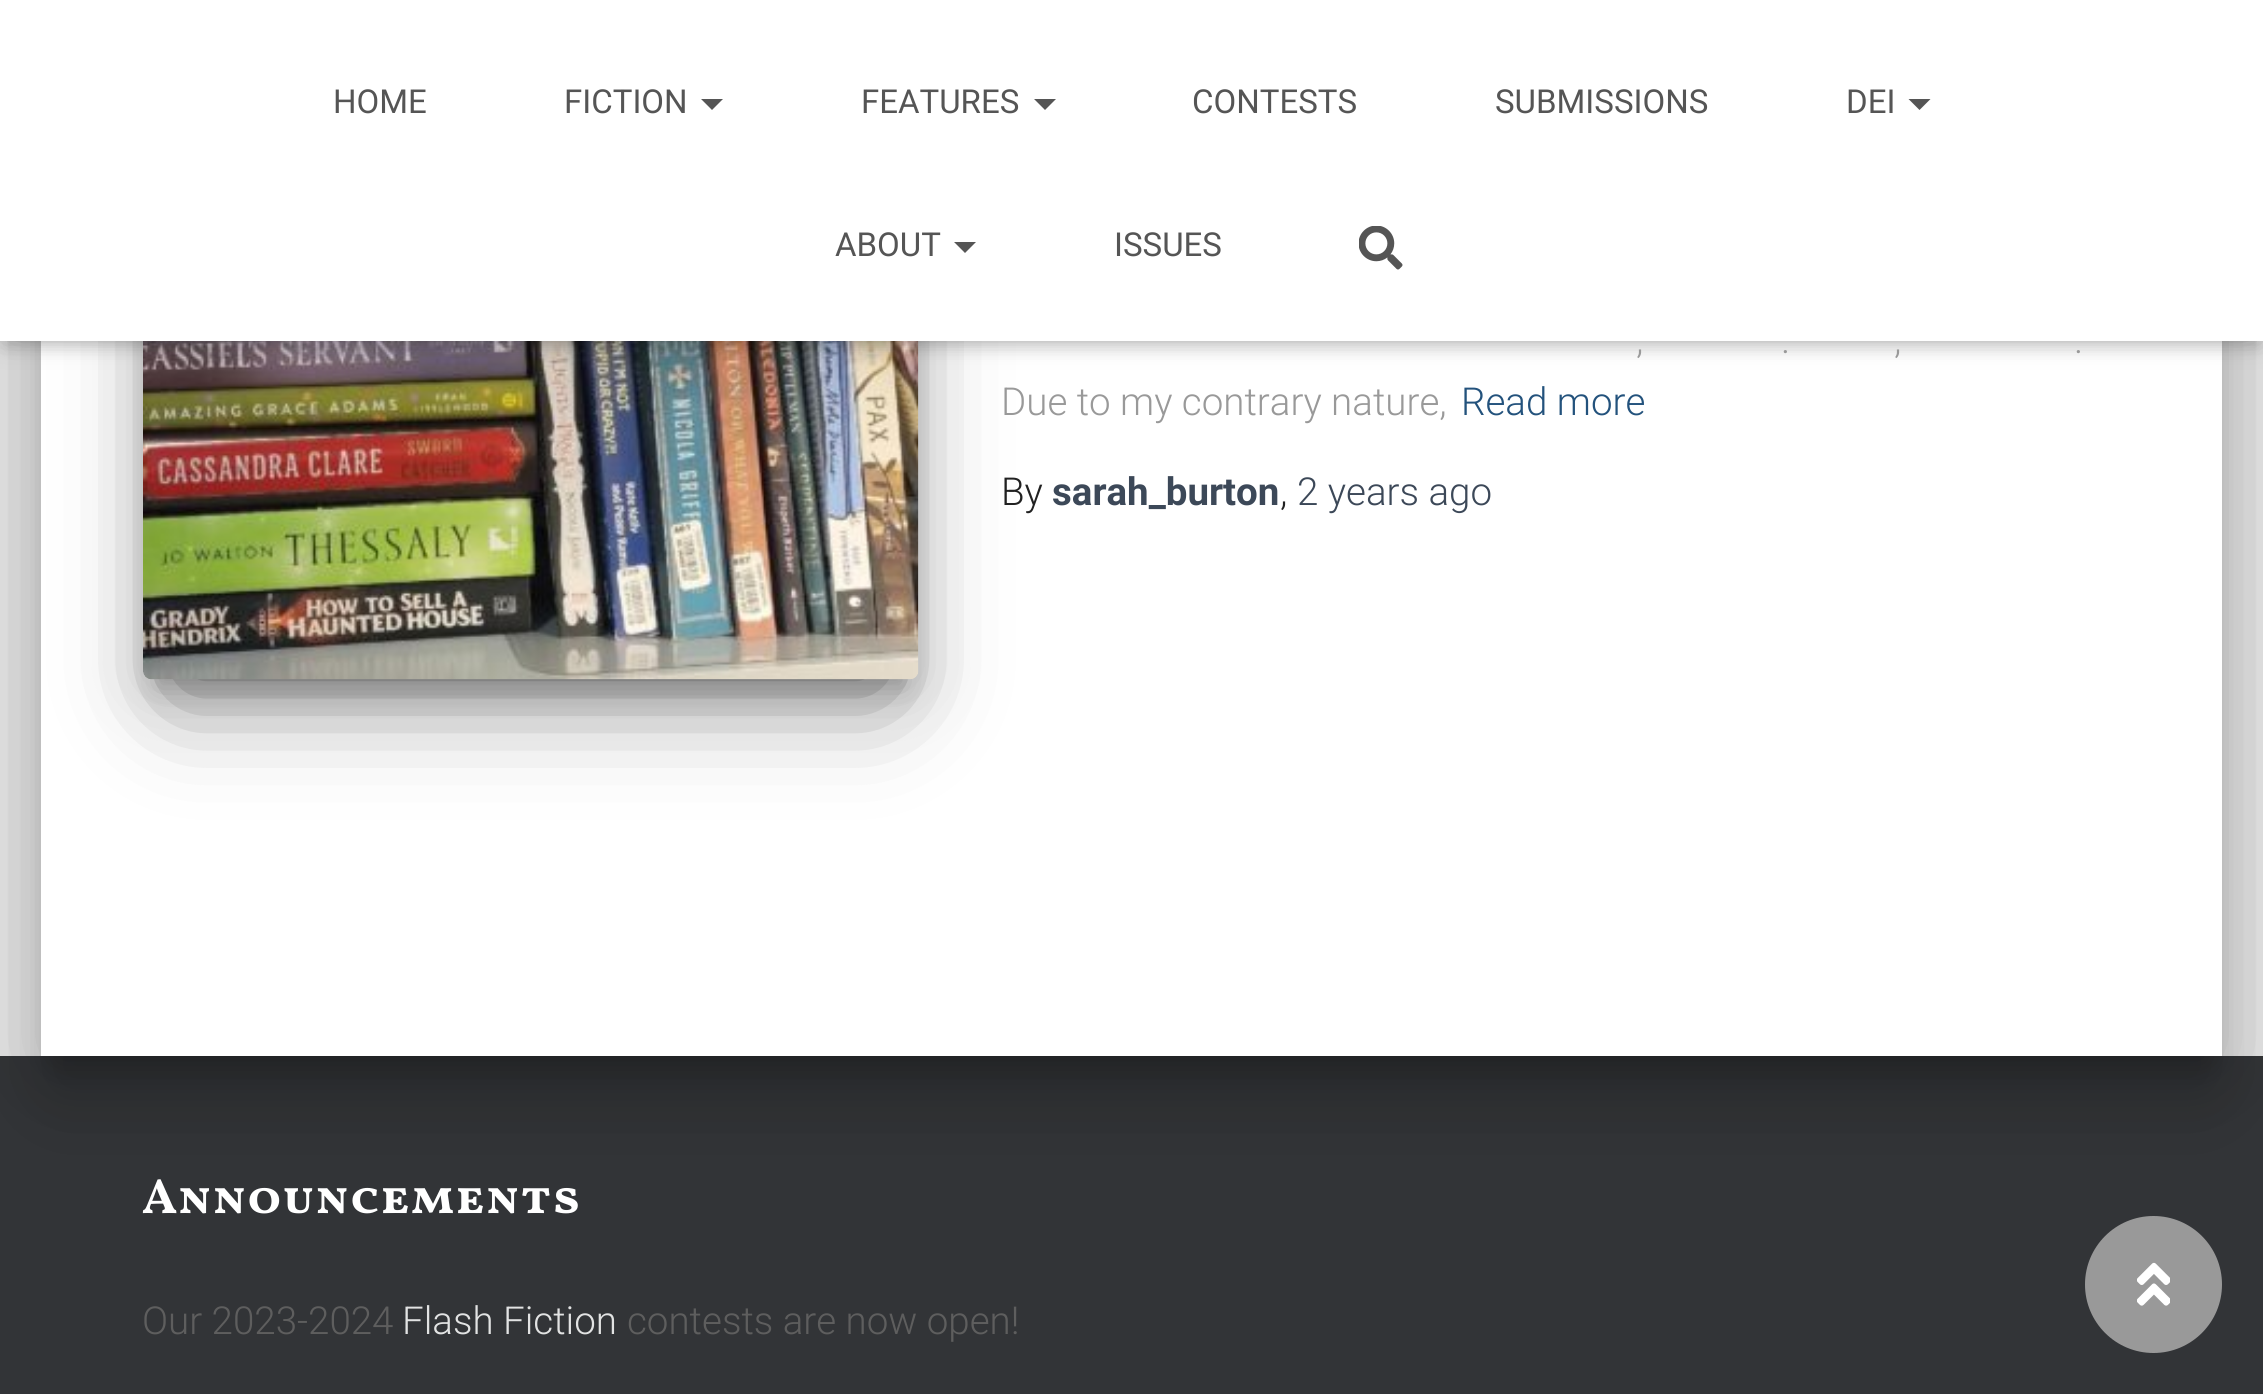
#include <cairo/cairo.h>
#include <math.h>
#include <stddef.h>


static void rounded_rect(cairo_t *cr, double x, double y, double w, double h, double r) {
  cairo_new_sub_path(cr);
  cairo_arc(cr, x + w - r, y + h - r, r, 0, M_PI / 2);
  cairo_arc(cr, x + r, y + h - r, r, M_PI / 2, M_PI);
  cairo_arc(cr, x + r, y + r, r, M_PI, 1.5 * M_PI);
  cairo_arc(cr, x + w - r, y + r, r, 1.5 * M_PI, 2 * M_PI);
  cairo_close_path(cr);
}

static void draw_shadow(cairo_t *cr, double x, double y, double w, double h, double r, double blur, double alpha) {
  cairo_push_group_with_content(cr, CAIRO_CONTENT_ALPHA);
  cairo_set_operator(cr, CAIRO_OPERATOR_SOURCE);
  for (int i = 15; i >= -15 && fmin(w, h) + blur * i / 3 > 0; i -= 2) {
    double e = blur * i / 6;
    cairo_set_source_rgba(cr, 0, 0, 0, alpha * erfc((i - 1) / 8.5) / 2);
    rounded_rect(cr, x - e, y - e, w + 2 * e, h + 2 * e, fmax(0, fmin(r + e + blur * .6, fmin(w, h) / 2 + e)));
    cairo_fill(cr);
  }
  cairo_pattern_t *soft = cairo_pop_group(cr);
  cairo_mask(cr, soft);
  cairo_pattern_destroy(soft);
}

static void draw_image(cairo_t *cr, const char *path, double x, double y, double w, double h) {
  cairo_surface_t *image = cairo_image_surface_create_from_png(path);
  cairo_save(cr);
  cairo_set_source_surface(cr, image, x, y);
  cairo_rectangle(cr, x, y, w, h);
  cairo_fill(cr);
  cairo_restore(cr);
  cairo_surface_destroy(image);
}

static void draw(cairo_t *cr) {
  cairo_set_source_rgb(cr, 229 / 255.0, 229 / 255.0, 229 / 255.0);
  cairo_paint(cr);
  cairo_set_source_rgb(cr, 50 / 255.0, 52 / 255.0, 55 / 255.0);
  cairo_rectangle(cr, 0, 1056, 2263, 338);
  cairo_fill(cr);
  cairo_set_source_rgb(cr, 0, 0, 0);
  draw_shadow(cr, 55, -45, 2153, 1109, 3, 14, 0.2);
  draw_shadow(cr, 28, -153, 2208, 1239, 30, 41, 0.12);
  draw_shadow(cr, 36, -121, 2192, 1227, 22, 33, 0.14);
  cairo_set_source_rgb(cr, 1, 1, 1);
  cairo_rectangle(cr, 41, 341, 2181, 715);
  cairo_fill(cr);
  cairo_set_source_rgb(cr, 0, 0, 0);
  draw_shadow(cr, 157, -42, 748, 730, 0, 14, 0.2);
  draw_shadow(cr, 143, -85, 776, 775, 8, 34.5, 0.12);
  draw_shadow(cr, 176, -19, 710, 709, 0, 52, 0.56);
  draw_image(cr, "images/2.png", 143, 341, 776, 339);
  draw_shadow(cr, 6, 17, 2252, 330, 0, 7, 0.1);
  draw_shadow(cr, 0, 3, 2263, 341, 0, 14, 0.12);
  draw_shadow(cr, 17, 19, 2230, 308, 0, 14, 0.42);
  cairo_set_source_rgb(cr, 1, 1, 1);
  cairo_rectangle(cr, 0, 0, 2263, 341);
  cairo_fill(cr);
  cairo_set_source_rgb(cr, 85 / 255.0, 85 / 255.0, 85 / 255.0);
  cairo_new_path(cr);
  cairo_move_to(cr, 701, 99);
  cairo_line_to(cr, 723, 99);
  cairo_line_to(cr, 712, 110);
  cairo_close_path(cr);
  cairo_fill(cr);
  cairo_new_path(cr);
  cairo_move_to(cr, 1034, 99);
  cairo_line_to(cr, 1056, 99);
  cairo_line_to(cr, 1045, 110);
  cairo_close_path(cr);
  cairo_fill(cr);
  cairo_new_path(cr);
  cairo_move_to(cr, 1908.5, 99);
  cairo_line_to(cr, 1930.5, 99);
  cairo_line_to(cr, 1919.5, 110);
  cairo_close_path(cr);
  cairo_fill(cr);
  cairo_new_path(cr);
  cairo_move_to(cr, 954, 242);
  cairo_line_to(cr, 976, 242);
  cairo_line_to(cr, 965, 253);
  cairo_close_path(cr);
  cairo_fill(cr);
  draw_image(cr, "images/1.png", 1359, 226, 44, 44);
  cairo_set_source_rgb(cr, 153 / 255.0, 153 / 255.0, 153 / 255.0);
  cairo_arc(cr, 2153.5, 1284.5, 68.5, 0, 2 * M_PI);
  cairo_fill(cr);
  draw_image(cr, "images/3.png", 2137, 1262, 33, 44);
  cairo_select_font_face(cr, "Roboto", CAIRO_FONT_SLANT_NORMAL, CAIRO_FONT_WEIGHT_NORMAL);
  cairo_set_font_size(cr, 33);
  cairo_set_source_rgb(cr, 85 / 255.0, 85 / 255.0, 85 / 255.0);
  cairo_move_to(cr, 333, 113);
  cairo_show_text(cr, "HOME");
  cairo_move_to(cr, 564, 113);
  cairo_show_text(cr, "FICTION");
  cairo_move_to(cr, 861, 113);
  cairo_show_text(cr, "FEATURES");
  cairo_move_to(cr, 1192, 113);
  cairo_show_text(cr, "CONTESTS");
  cairo_move_to(cr, 1495, 113);
  cairo_show_text(cr, "SUBMISSIONS");
  cairo_move_to(cr, 1846, 113);
  cairo_show_text(cr, "DEI");
  cairo_move_to(cr, 835, 256);
  cairo_show_text(cr, "ABOUT");
  cairo_move_to(cr, 1114, 256);
  cairo_show_text(cr, "ISSUES");
  cairo_select_font_face(cr, "Roboto Light", CAIRO_FONT_SLANT_NORMAL, CAIRO_FONT_WEIGHT_NORMAL);
  cairo_set_font_size(cr, 38.5);
  cairo_set_source_rgb(cr, 153 / 255.0, 153 / 255.0, 153 / 255.0);
  cairo_move_to(cr, 1636, 353);
  cairo_show_text(cr, ",");
  cairo_move_to(cr, 1781, 353);
  cairo_show_text(cr, ".");
  cairo_move_to(cr, 1894, 353);
  cairo_show_text(cr, ",");
  cairo_move_to(cr, 2074, 353);
  cairo_show_text(cr, ".");
  cairo_move_to(cr, 1001, 415);
  cairo_show_text(cr, "Due to my contrary nature,");
  cairo_set_source_rgb(cr, 35 / 255.0, 82 / 255.0, 124 / 255.0);
  cairo_move_to(cr, 1461, 415);
  cairo_show_text(cr, "Read more");
  cairo_set_source_rgb(cr, 33 / 255.0, 33 / 255.0, 33 / 255.0);
  cairo_move_to(cr, 1001, 505);
  cairo_show_text(cr, "By");
  cairo_select_font_face(cr, "Roboto", CAIRO_FONT_SLANT_NORMAL, CAIRO_FONT_WEIGHT_BOLD);
  cairo_set_source_rgb(cr, 60 / 255.0, 72 / 255.0, 88 / 255.0);
  cairo_move_to(cr, 1052, 505);
  cairo_show_text(cr, "sarah_burton");
  cairo_select_font_face(cr, "Roboto Light", CAIRO_FONT_SLANT_NORMAL, CAIRO_FONT_WEIGHT_NORMAL);
  cairo_set_source_rgb(cr, 33 / 255.0, 33 / 255.0, 33 / 255.0);
  cairo_move_to(cr, 1280, 505);
  cairo_show_text(cr, ",");
  cairo_set_source_rgb(cr, 60 / 255.0, 72 / 255.0, 88 / 255.0);
  cairo_move_to(cr, 1297, 505);
  cairo_show_text(cr, "2 years ago");
  cairo_select_font_face(cr, "Vollkorn SC", CAIRO_FONT_SLANT_NORMAL, CAIRO_FONT_WEIGHT_BOLD);
  cairo_set_font_size(cr, 49.5);
  cairo_set_source_rgb(cr, 1, 1, 1);
  cairo_move_to(cr, 142, 1213);
  cairo_show_text(cr, "Announcements");
  cairo_select_font_face(cr, "Roboto Light", CAIRO_FONT_SLANT_NORMAL, CAIRO_FONT_WEIGHT_NORMAL);
  cairo_set_font_size(cr, 38.5);
  cairo_set_source_rgb(cr, 94 / 255.0, 94 / 255.0, 94 / 255.0);
  cairo_move_to(cr, 142, 1334);
  cairo_show_text(cr, "Our 2023-2024");
  cairo_set_source_rgb(cr, 226 / 255.0, 227 / 255.0, 227 / 255.0);
  cairo_move_to(cr, 402, 1334);
  cairo_show_text(cr, "Flash Fiction");
  cairo_set_source_rgb(cr, 94 / 255.0, 94 / 255.0, 94 / 255.0);
  cairo_move_to(cr, 627, 1334);
  cairo_show_text(cr, "contests are now open!");
}

int main(void) {
  cairo_surface_t *surface = cairo_image_surface_create(CAIRO_FORMAT_RGB24, 2263, 1394);
  cairo_t *cr = cairo_create(surface);
  cairo_font_options_t *options = cairo_font_options_create();
  cairo_font_options_set_hint_metrics(options, CAIRO_HINT_METRICS_OFF);
  cairo_font_options_set_hint_style(options, CAIRO_HINT_STYLE_NONE);
  cairo_set_font_options(cr, options);
  cairo_set_miter_limit(cr, 4);
  draw(cr);
  cairo_surface_write_to_png(surface, "out.png");
  cairo_font_options_destroy(options);
  cairo_destroy(cr);
  cairo_surface_destroy(surface);
  return 0;
}
